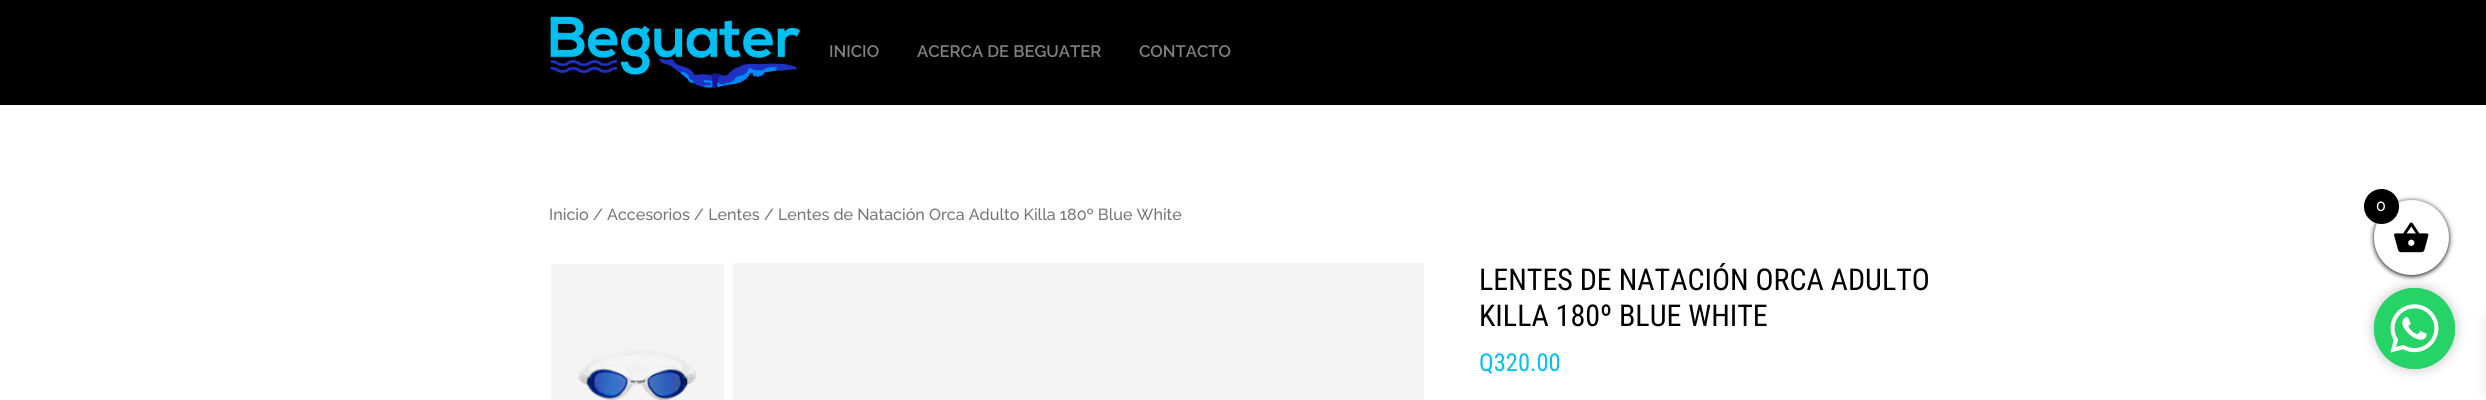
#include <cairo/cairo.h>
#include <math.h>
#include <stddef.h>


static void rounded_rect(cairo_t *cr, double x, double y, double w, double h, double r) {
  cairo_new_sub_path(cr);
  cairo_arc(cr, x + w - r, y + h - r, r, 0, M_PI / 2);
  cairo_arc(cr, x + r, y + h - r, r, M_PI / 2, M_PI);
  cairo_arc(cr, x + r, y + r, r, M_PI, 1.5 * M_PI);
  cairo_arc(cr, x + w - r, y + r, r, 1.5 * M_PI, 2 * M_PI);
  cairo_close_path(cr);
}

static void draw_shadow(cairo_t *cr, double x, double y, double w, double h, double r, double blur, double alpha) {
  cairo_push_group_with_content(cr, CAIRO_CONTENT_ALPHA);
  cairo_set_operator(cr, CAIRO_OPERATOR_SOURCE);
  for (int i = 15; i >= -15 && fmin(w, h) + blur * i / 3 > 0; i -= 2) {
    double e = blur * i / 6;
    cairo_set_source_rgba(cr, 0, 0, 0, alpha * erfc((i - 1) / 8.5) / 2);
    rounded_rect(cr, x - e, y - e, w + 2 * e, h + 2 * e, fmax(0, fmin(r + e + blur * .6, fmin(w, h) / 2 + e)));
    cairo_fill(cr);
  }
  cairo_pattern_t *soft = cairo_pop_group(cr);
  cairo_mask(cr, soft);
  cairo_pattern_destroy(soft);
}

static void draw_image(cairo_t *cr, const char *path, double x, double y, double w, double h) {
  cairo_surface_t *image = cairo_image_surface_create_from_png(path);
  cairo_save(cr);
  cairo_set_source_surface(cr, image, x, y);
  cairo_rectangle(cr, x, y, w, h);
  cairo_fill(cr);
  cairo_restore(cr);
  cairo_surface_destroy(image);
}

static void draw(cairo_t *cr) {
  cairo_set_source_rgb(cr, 1, 1, 1);
  cairo_paint(cr);
  cairo_set_source_rgb(cr, 0, 0, 0);
  cairo_rectangle(cr, 0, 0, 2486, 105);
  cairo_fill(cr);
  draw_image(cr, "images/1.png", 550, 16, 250, 73);
  cairo_set_source_rgb(cr, 0, 0, 0);
  draw_shadow(cr, 2374, 201, 75, 75, 37.5, 2.5, 1);
  cairo_set_source_rgb(cr, 1, 1, 1);
  cairo_arc(cr, 2411.5, 237.5, 37.5, 0, 2 * M_PI);
  cairo_fill(cr);
  draw_image(cr, "images/2.png", 2394, 222, 35, 31);
  cairo_set_source_rgb(cr, 0, 0, 0);
  cairo_arc(cr, 2381.5, 206.5, 17.5, 0, 2 * M_PI);
  cairo_fill(cr);
  cairo_set_source_rgb(cr, 0, 0, 0);
  draw_shadow(cr, 2486, 319, 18, 75, 0, 6, 0.1);
  draw_image(cr, "images/3.png", 551, 264, 173, 136);
  cairo_set_source_rgb(cr, 244 / 255.0, 244 / 255.0, 244 / 255.0);
  cairo_rectangle(cr, 733, 263, 691, 137);
  cairo_fill(cr);
  cairo_set_source_rgb(cr, 0, 0, 0);
  draw_shadow(cr, 2374, 288, 81, 81, 40.5, 6, 0.25);
  cairo_set_source_rgb(cr, 37 / 255.0, 211 / 255.0, 102 / 255.0);
  cairo_arc(cr, 2414.5, 328.5, 40.5, 0, 2 * M_PI);
  cairo_fill(cr);
  draw_image(cr, "images/4.png", 2374, 288, 81, 81);
  cairo_select_font_face(cr, "Raleway SemiBold", CAIRO_FONT_SLANT_NORMAL, CAIRO_FONT_WEIGHT_NORMAL);
  cairo_set_font_size(cr, 16.6);
  cairo_set_source_rgb(cr, 128 / 255.0, 128 / 255.0, 128 / 255.0);
  cairo_move_to(cr, 829, 57);
  cairo_show_text(cr, "INICIO");
  cairo_move_to(cr, 917, 57);
  cairo_show_text(cr, "ACERCA DE BEGUATER");
  cairo_move_to(cr, 1139, 57);
  cairo_show_text(cr, "CONTACTO");
  cairo_select_font_face(cr, "Raleway Medium", CAIRO_FONT_SLANT_NORMAL, CAIRO_FONT_WEIGHT_NORMAL);
  cairo_set_font_size(cr, 16);
  cairo_set_source_rgb(cr, 1, 1, 1);
  cairo_move_to(cr, 2376, 211);
  cairo_show_text(cr, "0");
  cairo_set_font_size(cr, 16.1);
  cairo_set_source_rgb(cr, 118 / 255.0, 118 / 255.0, 118 / 255.0);
  cairo_move_to(cr, 549, 220);
  cairo_show_text(cr, "Inicio / Accesorios / Lentes / Lentes de Natación Orca Adulto Killa 180º Blue White");
  cairo_select_font_face(cr, "Roboto Condensed", CAIRO_FONT_SLANT_NORMAL, CAIRO_FONT_WEIGHT_NORMAL);
  cairo_set_font_size(cr, 30);
  cairo_set_source_rgb(cr, 0, 0, 0);
  cairo_move_to(cr, 1479, 290);
  cairo_show_text(cr, "LENTES DE NATACIÓN ORCA ADULTO");
  cairo_move_to(cr, 1479, 326);
  cairo_show_text(cr, "KILLA 180º BLUE WHITE");
  cairo_set_font_size(cr, 24.5);
  cairo_set_source_rgb(cr, 0, 191 / 255.0, 242 / 255.0);
  cairo_move_to(cr, 1479, 371);
  cairo_show_text(cr, "Q320.00");
}

int main(void) {
  cairo_surface_t *surface = cairo_image_surface_create(CAIRO_FORMAT_RGB24, 2486, 400);
  cairo_t *cr = cairo_create(surface);
  cairo_font_options_t *options = cairo_font_options_create();
  cairo_font_options_set_hint_metrics(options, CAIRO_HINT_METRICS_OFF);
  cairo_font_options_set_hint_style(options, CAIRO_HINT_STYLE_NONE);
  cairo_set_font_options(cr, options);
  cairo_set_miter_limit(cr, 4);
  draw(cr);
  cairo_surface_write_to_png(surface, "out.png");
  cairo_font_options_destroy(options);
  cairo_destroy(cr);
  cairo_surface_destroy(surface);
  return 0;
}
